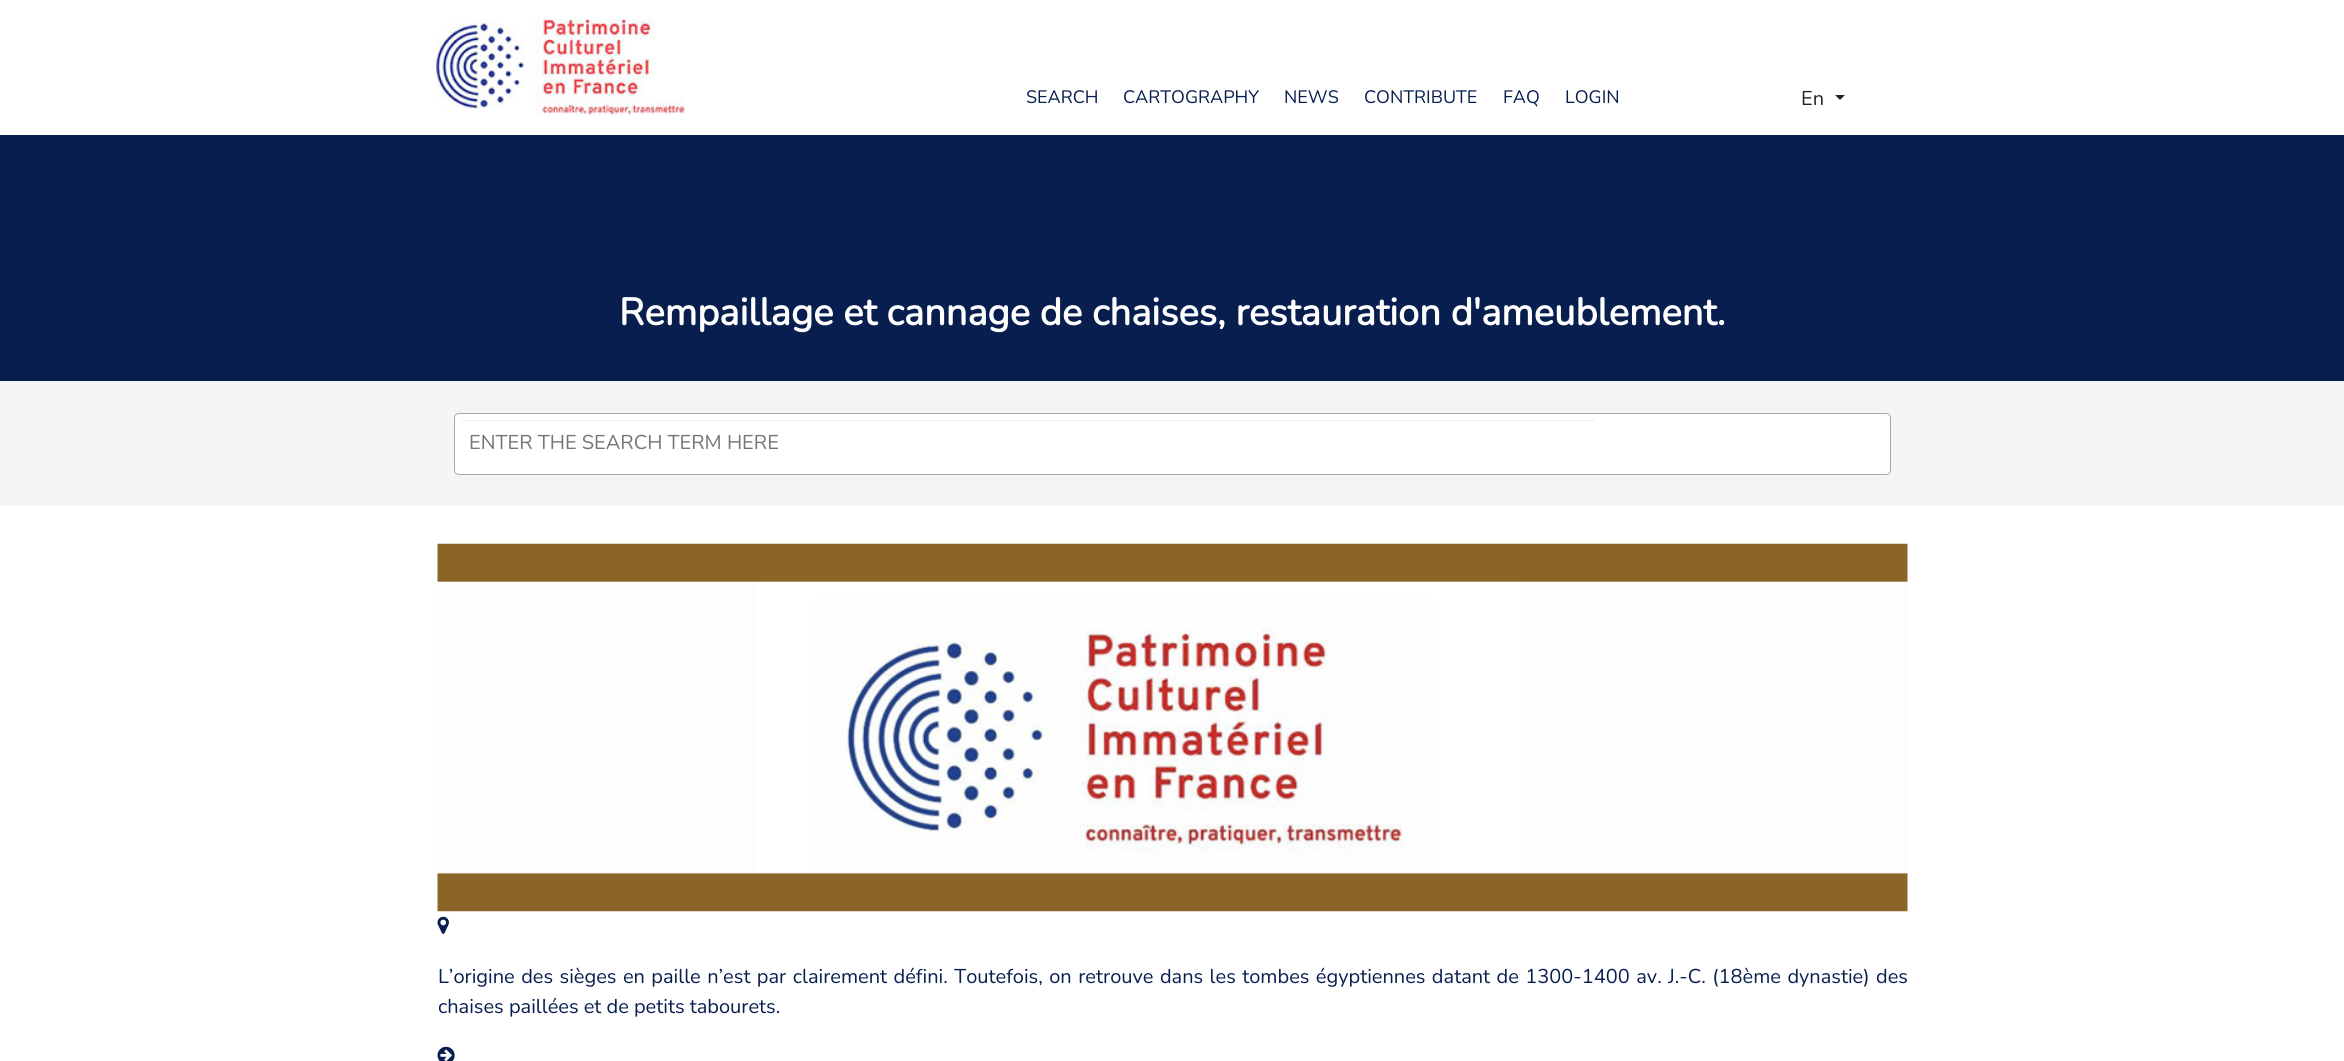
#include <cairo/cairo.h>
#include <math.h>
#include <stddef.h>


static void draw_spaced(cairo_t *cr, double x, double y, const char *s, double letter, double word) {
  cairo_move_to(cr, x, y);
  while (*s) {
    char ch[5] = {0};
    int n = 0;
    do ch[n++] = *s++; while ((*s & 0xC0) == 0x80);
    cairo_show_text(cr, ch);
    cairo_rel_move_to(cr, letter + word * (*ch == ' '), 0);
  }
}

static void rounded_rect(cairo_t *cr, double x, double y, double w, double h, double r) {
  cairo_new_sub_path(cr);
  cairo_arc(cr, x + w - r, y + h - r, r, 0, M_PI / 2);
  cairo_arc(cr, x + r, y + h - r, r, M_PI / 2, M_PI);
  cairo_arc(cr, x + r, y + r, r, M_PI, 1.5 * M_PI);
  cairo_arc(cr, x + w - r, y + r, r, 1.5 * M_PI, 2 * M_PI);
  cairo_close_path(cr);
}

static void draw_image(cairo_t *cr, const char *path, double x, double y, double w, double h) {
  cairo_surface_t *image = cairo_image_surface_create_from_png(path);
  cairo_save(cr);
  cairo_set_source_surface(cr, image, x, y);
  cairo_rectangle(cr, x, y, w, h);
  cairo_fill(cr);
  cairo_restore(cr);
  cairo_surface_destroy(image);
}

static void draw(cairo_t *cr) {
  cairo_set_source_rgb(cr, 1, 1, 1);
  cairo_paint(cr);
  draw_image(cr, "images/1.png", 435, 18, 250, 97);
  cairo_set_source_rgb(cr, 33 / 255.0, 37 / 255.0, 41 / 255.0);
  cairo_new_path(cr);
  cairo_move_to(cr, 1835, 95);
  cairo_line_to(cr, 1845, 95);
  cairo_line_to(cr, 1840, 100);
  cairo_close_path(cr);
  cairo_fill(cr);
  cairo_set_source_rgb(cr, 7 / 255.0, 30 / 255.0, 79 / 255.0);
  cairo_rectangle(cr, 0, 135, 2344, 246);
  cairo_fill(cr);
  cairo_set_source_rgb(cr, 245 / 255.0, 245 / 255.0, 245 / 255.0);
  cairo_rectangle(cr, 0, 381, 2344, 125);
  cairo_fill(cr);
  cairo_set_source_rgb(cr, 1, 1, 1);
  rounded_rect(cr, 454.5, 413.5, 1436, 61, 4.5);
  cairo_fill_preserve(cr);
  cairo_set_source_rgb(cr, 170 / 255.0, 170 / 255.0, 170 / 255.0);
  cairo_set_line_width(cr, 1);
  cairo_stroke(cr);
  cairo_set_source_rgb(cr, 236 / 255.0, 236 / 255.0, 236 / 255.0);
  cairo_new_path(cr);
  cairo_move_to(cr, 465, 421);
  cairo_line_to(cr, 1592, 421);
  cairo_curve_to(cr, 1595, 421, 1596, 423, 1596, 425);
  cairo_curve_to(cr, 1596, 422, 1595, 420, 1592, 420);
  cairo_line_to(cr, 465, 420);
  cairo_curve_to(cr, 462, 420, 461, 422, 461, 425);
  cairo_curve_to(cr, 461, 423, 463, 421, 465, 421);
  cairo_close_path(cr);
  cairo_fill(cr);
  draw_image(cr, "images/2.png", 437, 543, 1471, 369);
  draw_image(cr, "images/3.png", 437, 916, 12, 18);
  draw_image(cr, "images/4.png", 437, 1046, 18, 15);
  cairo_select_font_face(cr, "Nunito ExtraLight", CAIRO_FONT_SLANT_NORMAL, CAIRO_FONT_WEIGHT_NORMAL);
  cairo_set_font_size(cr, 18);
  cairo_set_source_rgb(cr, 7 / 255.0, 30 / 255.0, 79 / 255.0);
  cairo_move_to(cr, 1026, 103);
  cairo_show_text(cr, "SEARCH");
  cairo_move_to(cr, 1123, 103);
  cairo_show_text(cr, "CARTOGRAPHY");
  cairo_move_to(cr, 1284, 103);
  cairo_show_text(cr, "NEWS");
  cairo_move_to(cr, 1364, 103);
  cairo_show_text(cr, "CONTRIBUTE");
  cairo_move_to(cr, 1503, 103);
  cairo_show_text(cr, "FAQ");
  cairo_move_to(cr, 1565, 103);
  cairo_show_text(cr, "LOGIN");
  cairo_set_font_size(cr, 20);
  cairo_set_source_rgb(cr, 33 / 255.0, 37 / 255.0, 41 / 255.0);
  cairo_move_to(cr, 1801, 105);
  cairo_show_text(cr, "En");
  cairo_select_font_face(cr, "Nunito", CAIRO_FONT_SLANT_NORMAL, CAIRO_FONT_WEIGHT_BOLD);
  cairo_set_font_size(cr, 38);
  cairo_set_source_rgb(cr, 1, 1, 1);
  cairo_move_to(cr, 619, 325);
  cairo_show_text(cr, "Rempaillage et cannage de chaises, restauration d'ameublement.");
  cairo_select_font_face(cr, "Nunito ExtraLight", CAIRO_FONT_SLANT_NORMAL, CAIRO_FONT_WEIGHT_NORMAL);
  cairo_set_font_size(cr, 20);
  cairo_set_source_rgb(cr, 117 / 255.0, 117 / 255.0, 117 / 255.0);
  cairo_move_to(cr, 469, 449);
  cairo_show_text(cr, "ENTER THE SEARCH TERM HERE");
  cairo_set_source_rgb(cr, 7 / 255.0, 30 / 255.0, 79 / 255.0);
  draw_spaced(cr, 438, 983, "L’origine des sièges en paille n’est par clairement défini. Toutefois, on retrouve dans les tombes égyptiennes datant de 1300-1400 av. J.-C. (18ème dynastie) des", 0, 1.3);
  cairo_move_to(cr, 438, 1013);
  cairo_show_text(cr, "chaises paillées et de petits tabourets.");
}

int main(void) {
  cairo_surface_t *surface = cairo_image_surface_create(CAIRO_FORMAT_RGB24, 2344, 1061);
  cairo_t *cr = cairo_create(surface);
  cairo_font_options_t *options = cairo_font_options_create();
  cairo_font_options_set_hint_metrics(options, CAIRO_HINT_METRICS_OFF);
  cairo_font_options_set_hint_style(options, CAIRO_HINT_STYLE_NONE);
  cairo_set_font_options(cr, options);
  cairo_set_miter_limit(cr, 4);
  draw(cr);
  cairo_surface_write_to_png(surface, "out.png");
  cairo_font_options_destroy(options);
  cairo_destroy(cr);
  cairo_surface_destroy(surface);
  return 0;
}
